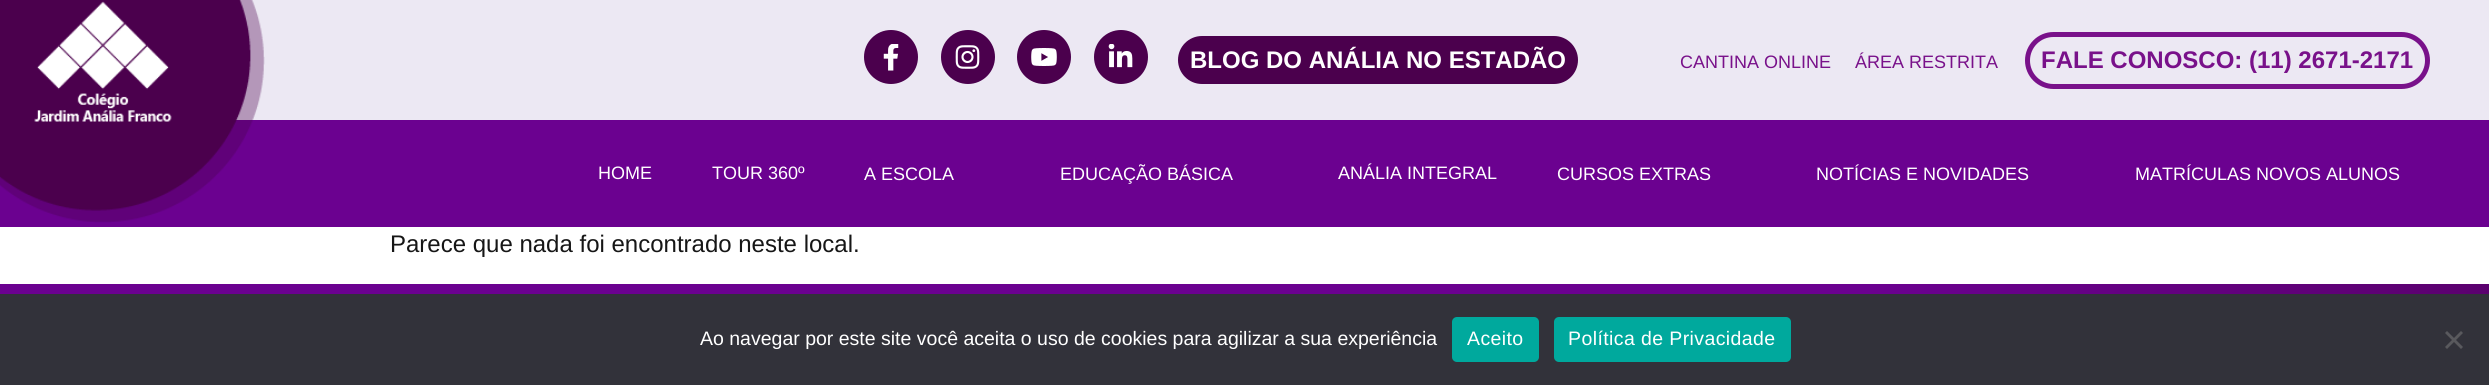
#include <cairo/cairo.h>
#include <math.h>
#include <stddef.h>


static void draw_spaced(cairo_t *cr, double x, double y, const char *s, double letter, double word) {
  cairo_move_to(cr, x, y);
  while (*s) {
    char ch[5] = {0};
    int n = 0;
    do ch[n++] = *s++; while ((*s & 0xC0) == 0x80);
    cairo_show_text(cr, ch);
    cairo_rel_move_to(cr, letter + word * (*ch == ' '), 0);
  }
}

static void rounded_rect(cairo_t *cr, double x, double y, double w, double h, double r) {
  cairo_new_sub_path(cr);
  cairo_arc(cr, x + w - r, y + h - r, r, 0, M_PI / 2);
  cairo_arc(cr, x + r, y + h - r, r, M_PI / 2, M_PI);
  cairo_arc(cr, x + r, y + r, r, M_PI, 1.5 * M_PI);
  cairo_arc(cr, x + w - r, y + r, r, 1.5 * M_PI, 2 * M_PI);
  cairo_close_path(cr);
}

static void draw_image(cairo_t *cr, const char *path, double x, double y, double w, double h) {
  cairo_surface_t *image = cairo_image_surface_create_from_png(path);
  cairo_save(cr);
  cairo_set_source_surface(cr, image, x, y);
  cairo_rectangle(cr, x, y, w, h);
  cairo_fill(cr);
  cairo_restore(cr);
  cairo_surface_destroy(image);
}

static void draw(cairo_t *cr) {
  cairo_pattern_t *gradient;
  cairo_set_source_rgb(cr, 1, 1, 1);
  cairo_paint(cr);
  cairo_set_source_rgb(cr, 236 / 255.0, 232 / 255.0, 243 / 255.0);
  cairo_rectangle(cr, 235, 0, 2254, 120);
  cairo_fill(cr);
  cairo_set_source_rgb(cr, 107 / 255.0, 1 / 255.0, 144 / 255.0);
  cairo_rectangle(cr, 0, 120, 2489, 107);
  cairo_fill(cr);
  draw_image(cr, "images/1.png", 0, 0, 265, 223);
  cairo_set_source_rgb(cr, 75 / 255.0, 0, 77 / 255.0);
  cairo_arc(cr, 891, 57, 27, 0, 2 * M_PI);
  cairo_fill(cr);
  draw_image(cr, "images/2.png", 883, 44, 16, 27);
  cairo_arc(cr, 968, 57, 27, 0, 2 * M_PI);
  cairo_fill(cr);
  draw_image(cr, "images/3.png", 955, 45, 25, 24);
  cairo_arc(cr, 1044, 57, 27, 0, 2 * M_PI);
  cairo_fill(cr);
  draw_image(cr, "images/4.png", 1031, 48, 26, 18);
  cairo_arc(cr, 1121, 57, 27, 0, 2 * M_PI);
  cairo_fill(cr);
  draw_image(cr, "images/5.png", 1108, 44, 25, 24);
  rounded_rect(cr, 1178, 36, 400, 48, 24);
  cairo_fill(cr);
  rounded_rect(cr, 2027.5, 34.5, 400, 52, 26);
  cairo_set_source_rgb(cr, 121 / 255.0, 17 / 255.0, 138 / 255.0);
  cairo_set_line_width(cr, 5);
  cairo_stroke(cr);
  gradient = cairo_pattern_create_linear(465, -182, 2025, 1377);
  cairo_pattern_add_color_stop_rgba(gradient, 0.6, 107 / 255.0, 1 / 255.0, 144 / 255.0, 1);
  cairo_pattern_add_color_stop_rgba(gradient, 1, 75 / 255.0, 0, 77 / 255.0, 1);
  cairo_set_source(cr, gradient);
  cairo_pattern_destroy(gradient);
  cairo_rectangle(cr, 0, 284, 2489, 10);
  cairo_fill(cr);
  cairo_set_source_rgb(cr, 50 / 255.0, 50 / 255.0, 58 / 255.0);
  cairo_rectangle(cr, 0, 294, 2489, 91);
  cairo_fill(cr);
  cairo_set_source_rgb(cr, 0, 169 / 255.0, 157 / 255.0);
  rounded_rect(cr, 1452, 317, 87, 45, 5);
  cairo_fill(cr);
  rounded_rect(cr, 1554, 317, 237, 45, 5);
  cairo_fill(cr);
  cairo_set_source_rgb(cr, 89 / 255.0, 89 / 255.0, 93 / 255.0);
  cairo_new_path(cr);
  cairo_move_to(cr, 2461, 331);
  cairo_line_to(cr, 2463, 333);
  cairo_line_to(cr, 2447, 349);
  cairo_line_to(cr, 2445, 347);
  cairo_close_path(cr);
  cairo_fill(cr);
  cairo_new_path(cr);
  cairo_move_to(cr, 2445, 333);
  cairo_line_to(cr, 2447, 331);
  cairo_line_to(cr, 2463, 347);
  cairo_line_to(cr, 2461, 349);
  cairo_close_path(cr);
  cairo_fill(cr);
  cairo_select_font_face(cr, "Liberation Sans", CAIRO_FONT_SLANT_NORMAL, CAIRO_FONT_WEIGHT_BOLD);
  cairo_set_font_size(cr, 24);
  cairo_set_source_rgb(cr, 1, 1, 1);
  cairo_move_to(cr, 1190, 68);
  cairo_show_text(cr, "BLOG DO ANÁLIA NO ESTADÃO");
  cairo_select_font_face(cr, "Liberation Sans", CAIRO_FONT_SLANT_NORMAL, CAIRO_FONT_WEIGHT_NORMAL);
  cairo_set_font_size(cr, 18);
  cairo_set_source_rgb(cr, 121 / 255.0, 17 / 255.0, 138 / 255.0);
  cairo_move_to(cr, 1680, 68);
  cairo_show_text(cr, "CANTINA ONLINE");
  cairo_move_to(cr, 1855, 68);
  cairo_show_text(cr, "ÁREA RESTRITA");
  cairo_select_font_face(cr, "Liberation Sans", CAIRO_FONT_SLANT_NORMAL, CAIRO_FONT_WEIGHT_BOLD);
  cairo_set_font_size(cr, 24);
  cairo_move_to(cr, 2041, 68);
  cairo_show_text(cr, "FALE CONOSCO: (11) 2671-2171");
  cairo_select_font_face(cr, "Liberation Sans", CAIRO_FONT_SLANT_NORMAL, CAIRO_FONT_WEIGHT_NORMAL);
  cairo_set_font_size(cr, 18);
  cairo_set_source_rgb(cr, 1, 1, 1);
  cairo_move_to(cr, 598, 179);
  cairo_show_text(cr, "HOME");
  cairo_move_to(cr, 712, 179);
  cairo_show_text(cr, "TOUR 360º");
  cairo_move_to(cr, 864, 180);
  cairo_show_text(cr, "A ESCOLA");
  cairo_move_to(cr, 1060, 180);
  cairo_show_text(cr, "EDUCAÇÃO BÁSICA");
  cairo_move_to(cr, 1338, 179);
  cairo_show_text(cr, "ANÁLIA INTEGRAL");
  cairo_move_to(cr, 1557, 180);
  cairo_show_text(cr, "CURSOS EXTRAS");
  cairo_move_to(cr, 1816, 180);
  cairo_show_text(cr, "NOTÍCIAS E NOVIDADES");
  cairo_move_to(cr, 2135, 180);
  cairo_show_text(cr, "MATRÍCULAS NOVOS ALUNOS");
  cairo_set_font_size(cr, 24);
  cairo_set_source_rgb(cr, 22 / 255.0, 22 / 255.0, 22 / 255.0);
  cairo_move_to(cr, 390, 252);
  cairo_show_text(cr, "Parece que nada foi encontrado neste local.");
  cairo_set_font_size(cr, 19.5);
  cairo_set_source_rgb(cr, 1, 1, 1);
  cairo_move_to(cr, 700, 345);
  cairo_show_text(cr, "Ao navegar por este site você aceita o uso de cookies para agilizar a sua experiência");
  draw_spaced(cr, 1467, 345, "Aceito", 0.4, 0);
  draw_spaced(cr, 1568, 345, "Política de Privacidade", 0.4, 0);
}

int main(void) {
  cairo_surface_t *surface = cairo_image_surface_create(CAIRO_FORMAT_RGB24, 2489, 385);
  cairo_t *cr = cairo_create(surface);
  cairo_font_options_t *options = cairo_font_options_create();
  cairo_font_options_set_hint_metrics(options, CAIRO_HINT_METRICS_OFF);
  cairo_font_options_set_hint_style(options, CAIRO_HINT_STYLE_NONE);
  cairo_set_font_options(cr, options);
  cairo_set_miter_limit(cr, 4);
  draw(cr);
  cairo_surface_write_to_png(surface, "out.png");
  cairo_font_options_destroy(options);
  cairo_destroy(cr);
  cairo_surface_destroy(surface);
  return 0;
}
